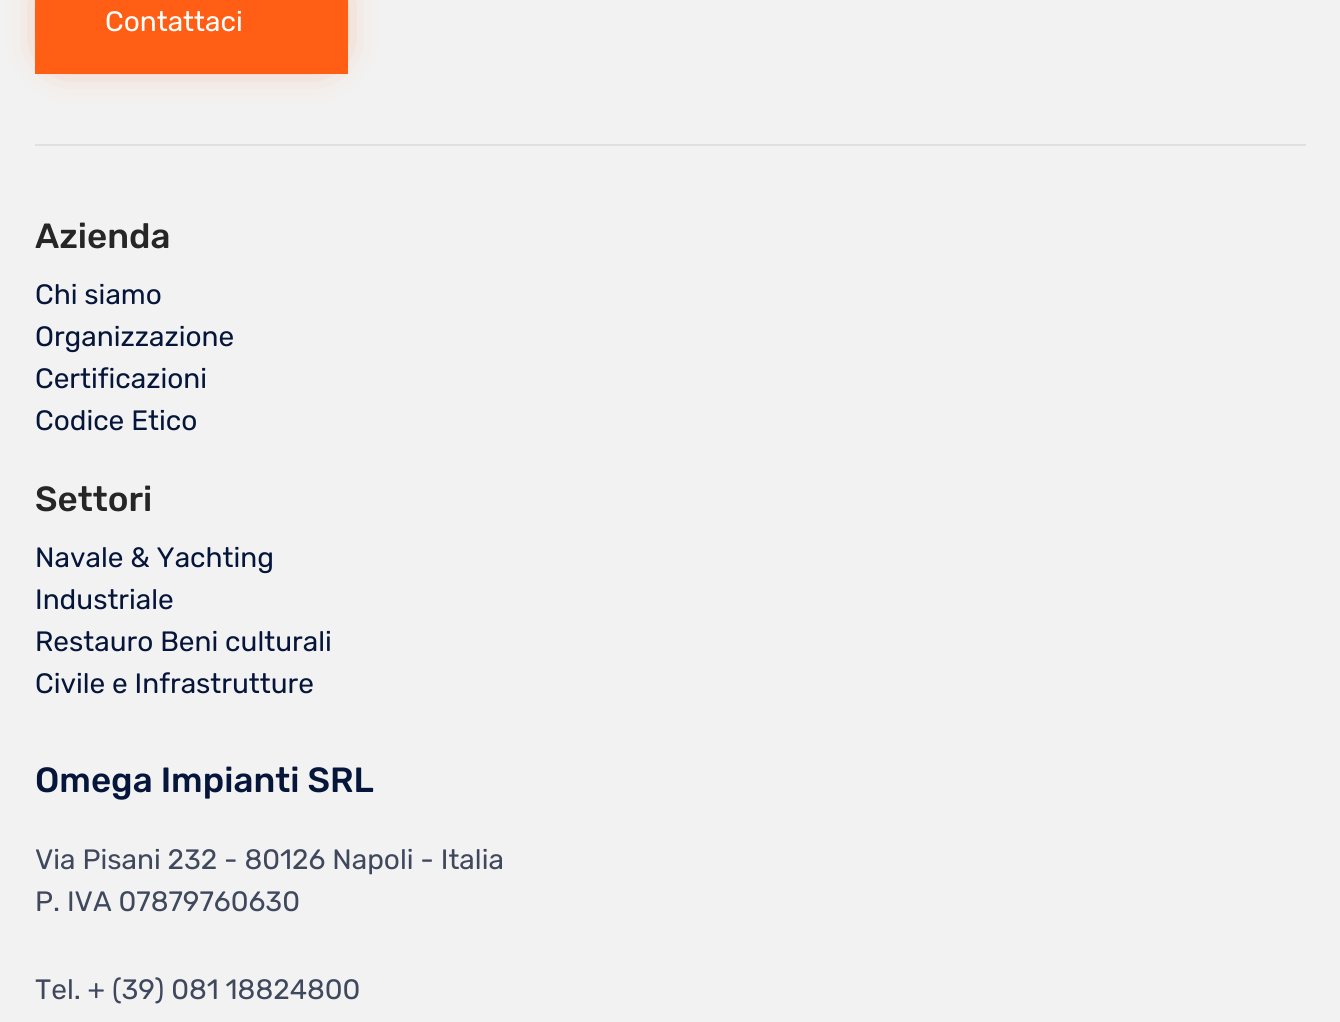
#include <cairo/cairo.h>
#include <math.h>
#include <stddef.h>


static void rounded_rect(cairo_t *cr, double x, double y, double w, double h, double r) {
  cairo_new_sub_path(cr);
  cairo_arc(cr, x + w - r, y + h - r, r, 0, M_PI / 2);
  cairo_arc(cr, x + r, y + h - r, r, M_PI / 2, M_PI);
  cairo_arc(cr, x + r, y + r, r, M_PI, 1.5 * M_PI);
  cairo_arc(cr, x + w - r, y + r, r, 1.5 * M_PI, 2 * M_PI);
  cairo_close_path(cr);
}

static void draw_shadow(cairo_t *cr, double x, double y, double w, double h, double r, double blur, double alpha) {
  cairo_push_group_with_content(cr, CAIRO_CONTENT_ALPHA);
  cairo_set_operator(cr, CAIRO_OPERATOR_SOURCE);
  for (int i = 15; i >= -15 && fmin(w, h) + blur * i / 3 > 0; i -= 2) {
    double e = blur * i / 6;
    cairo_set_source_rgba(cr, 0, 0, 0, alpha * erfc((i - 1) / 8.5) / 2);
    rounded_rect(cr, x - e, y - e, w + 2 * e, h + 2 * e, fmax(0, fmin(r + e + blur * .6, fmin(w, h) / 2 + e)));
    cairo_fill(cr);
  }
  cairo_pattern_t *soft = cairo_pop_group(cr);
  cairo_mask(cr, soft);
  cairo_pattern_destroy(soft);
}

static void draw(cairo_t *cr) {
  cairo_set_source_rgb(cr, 242 / 255.0, 242 / 255.0, 242 / 255.0);
  cairo_paint(cr);
  cairo_set_source_rgb(cr, 1, 94 / 255.0, 20 / 255.0);
  draw_shadow(cr, 60, -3, 264, 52, 0, 22, 1);
  cairo_set_source_rgb(cr, 1, 94 / 255.0, 20 / 255.0);
  cairo_rectangle(cr, 35, 0, 313, 74);
  cairo_fill(cr);
  cairo_set_source_rgb(cr, 224 / 255.0, 224 / 255.0, 224 / 255.0);
  cairo_rectangle(cr, 35, 144, 1271, 2);
  cairo_fill(cr);
  cairo_select_font_face(cr, "Rubik", CAIRO_FONT_SLANT_NORMAL, CAIRO_FONT_WEIGHT_NORMAL);
  cairo_set_font_size(cr, 28);
  cairo_set_source_rgb(cr, 1, 1, 1);
  cairo_move_to(cr, 105, 31);
  cairo_show_text(cr, "Contattaci");
  cairo_select_font_face(cr, "Rubik Light", CAIRO_FONT_SLANT_NORMAL, CAIRO_FONT_WEIGHT_NORMAL);
  cairo_set_font_size(cr, 35);
  cairo_set_source_rgb(cr, 38 / 255.0, 38 / 255.0, 38 / 255.0);
  cairo_move_to(cr, 35, 248);
  cairo_show_text(cr, "Azienda");
  cairo_select_font_face(cr, "Rubik", CAIRO_FONT_SLANT_NORMAL, CAIRO_FONT_WEIGHT_NORMAL);
  cairo_set_font_size(cr, 28);
  cairo_set_source_rgb(cr, 6 / 255.0, 22 / 255.0, 58 / 255.0);
  cairo_move_to(cr, 35, 304);
  cairo_show_text(cr, "Chi siamo");
  cairo_move_to(cr, 35, 346);
  cairo_show_text(cr, "Organizzazione");
  cairo_move_to(cr, 35, 388);
  cairo_show_text(cr, "Certificazioni");
  cairo_move_to(cr, 35, 430);
  cairo_show_text(cr, "Codice Etico");
  cairo_select_font_face(cr, "Rubik Light", CAIRO_FONT_SLANT_NORMAL, CAIRO_FONT_WEIGHT_NORMAL);
  cairo_set_font_size(cr, 35);
  cairo_set_source_rgb(cr, 38 / 255.0, 38 / 255.0, 38 / 255.0);
  cairo_move_to(cr, 35, 511);
  cairo_show_text(cr, "Settori");
  cairo_select_font_face(cr, "Rubik", CAIRO_FONT_SLANT_NORMAL, CAIRO_FONT_WEIGHT_NORMAL);
  cairo_set_font_size(cr, 28);
  cairo_set_source_rgb(cr, 6 / 255.0, 22 / 255.0, 58 / 255.0);
  cairo_move_to(cr, 35, 567);
  cairo_show_text(cr, "Navale & Yachting");
  cairo_move_to(cr, 35, 609);
  cairo_show_text(cr, "Industriale");
  cairo_move_to(cr, 35, 651);
  cairo_show_text(cr, "Restauro Beni culturali");
  cairo_move_to(cr, 35, 693);
  cairo_show_text(cr, "Civile e Infrastrutture");
  cairo_select_font_face(cr, "Rubik Light", CAIRO_FONT_SLANT_NORMAL, CAIRO_FONT_WEIGHT_NORMAL);
  cairo_set_font_size(cr, 35);
  cairo_move_to(cr, 35, 792);
  cairo_show_text(cr, "Omega Impianti SRL");
  cairo_select_font_face(cr, "Rubik", CAIRO_FONT_SLANT_NORMAL, CAIRO_FONT_WEIGHT_NORMAL);
  cairo_set_font_size(cr, 28);
  cairo_set_source_rgb(cr, 63 / 255.0, 72 / 255.0, 93 / 255.0);
  cairo_move_to(cr, 35, 869);
  cairo_show_text(cr, "Via Pisani 232 - 80126 Napoli - Italia");
  cairo_move_to(cr, 35, 911);
  cairo_show_text(cr, "P. IVA 07879760630");
  cairo_move_to(cr, 35, 999);
  cairo_show_text(cr, "Tel. + (39) 081 18824800");
}

int main(void) {
  cairo_surface_t *surface = cairo_image_surface_create(CAIRO_FORMAT_RGB24, 1340, 1022);
  cairo_t *cr = cairo_create(surface);
  cairo_font_options_t *options = cairo_font_options_create();
  cairo_font_options_set_hint_metrics(options, CAIRO_HINT_METRICS_OFF);
  cairo_font_options_set_hint_style(options, CAIRO_HINT_STYLE_NONE);
  cairo_set_font_options(cr, options);
  cairo_set_miter_limit(cr, 4);
  draw(cr);
  cairo_surface_write_to_png(surface, "out.png");
  cairo_font_options_destroy(options);
  cairo_destroy(cr);
  cairo_surface_destroy(surface);
  return 0;
}
